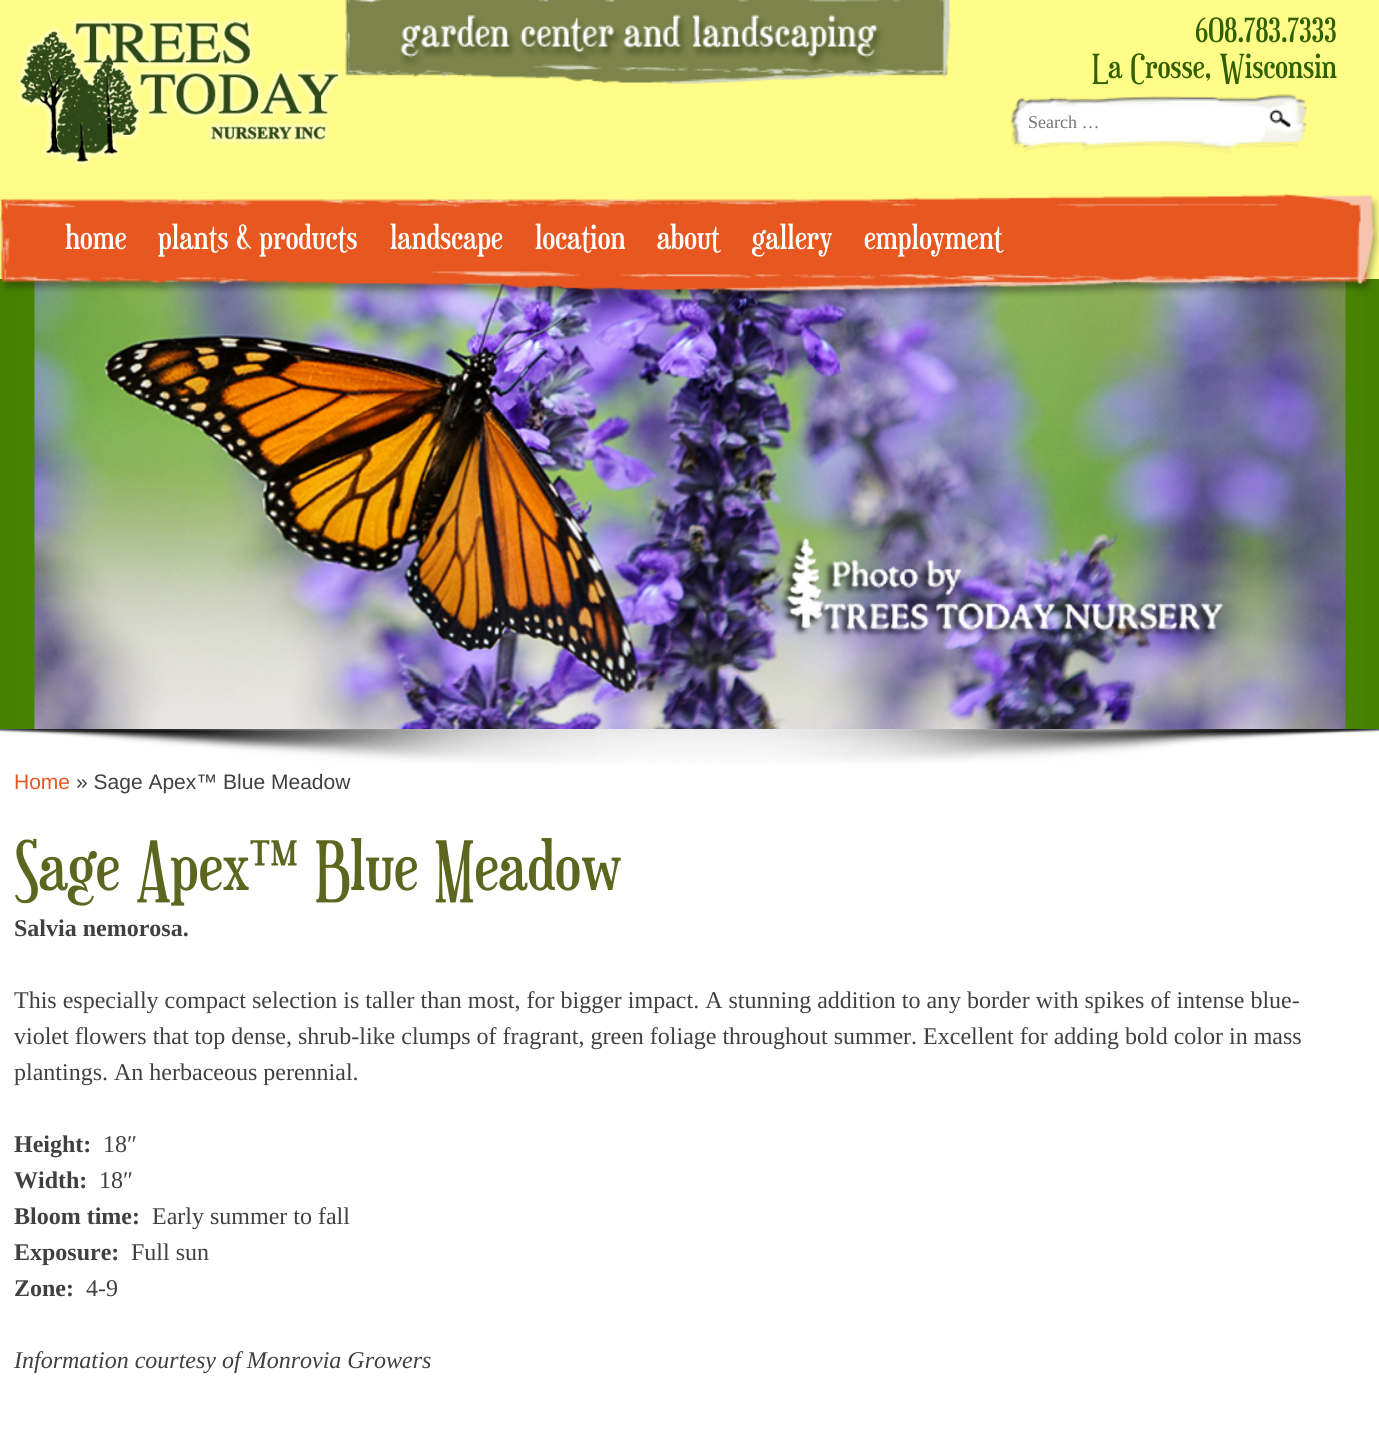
#include <cairo/cairo.h>
#include <math.h>
#include <stddef.h>


static void rounded_rect(cairo_t *cr, double x, double y, double w, double h, double r) {
  cairo_new_sub_path(cr);
  cairo_arc(cr, x + w - r, y + h - r, r, 0, M_PI / 2);
  cairo_arc(cr, x + r, y + h - r, r, M_PI / 2, M_PI);
  cairo_arc(cr, x + r, y + r, r, M_PI, 1.5 * M_PI);
  cairo_arc(cr, x + w - r, y + r, r, 1.5 * M_PI, 2 * M_PI);
  cairo_close_path(cr);
}

static void draw_image(cairo_t *cr, const char *path, double x, double y, double w, double h) {
  cairo_surface_t *image = cairo_image_surface_create_from_png(path);
  cairo_save(cr);
  cairo_set_source_surface(cr, image, x, y);
  cairo_rectangle(cr, x, y, w, h);
  cairo_fill(cr);
  cairo_restore(cr);
  cairo_surface_destroy(image);
}

static void draw(cairo_t *cr) {
  cairo_set_source_rgb(cr, 1, 1, 1);
  cairo_paint(cr);
  cairo_set_source_rgb(cr, 1, 252 / 255.0, 135 / 255.0);
  cairo_rectangle(cr, 0, 0, 1379, 279);
  cairo_fill(cr);
  draw_image(cr, "images/1.png", 15, 17, 328, 150);
  draw_image(cr, "images/2.png", 345, 0, 606, 84);
  draw_image(cr, "images/3.png", 1010, 94, 297, 59);
  cairo_set_source_rgb(cr, 1, 1, 1);
  rounded_rect(cr, 1023, 107, 242, 31, 5);
  cairo_fill(cr);
  draw_image(cr, "images/4.png", 1269, 109, 23, 19);
  draw_image(cr, "images/6.png", 0, 279, 1379, 450);
  draw_image(cr, "images/7.png", 34, 280, 1312, 449);
  draw_image(cr, "images/5.png", 0, 193, 1379, 108);
  draw_image(cr, "images/8.png", 0, 729, 1379, 35);
  cairo_select_font_face(cr, "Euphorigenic", CAIRO_FONT_SLANT_NORMAL, CAIRO_FONT_WEIGHT_NORMAL);
  cairo_set_font_size(cr, 33);
  cairo_set_source_rgb(cr, 49 / 255.0, 96 / 255.0, 0);
  cairo_move_to(cr, 1195, 42);
  cairo_show_text(cr, "608.783.7333");
  cairo_move_to(cr, 1092, 78);
  cairo_show_text(cr, "La Crosse, Wisconsin");
  cairo_select_font_face(cr, "Liberation Serif", CAIRO_FONT_SLANT_NORMAL, CAIRO_FONT_WEIGHT_NORMAL);
  cairo_set_font_size(cr, 18);
  cairo_set_source_rgb(cr, 117 / 255.0, 117 / 255.0, 117 / 255.0);
  cairo_move_to(cr, 1028, 128);
  cairo_show_text(cr, "Search …");
  cairo_select_font_face(cr, "Euphorigenic", CAIRO_FONT_SLANT_NORMAL, CAIRO_FONT_WEIGHT_NORMAL);
  cairo_set_font_size(cr, 33);
  cairo_set_source_rgb(cr, 1, 1, 1);
  cairo_move_to(cr, 65, 249);
  cairo_show_text(cr, "home");
  cairo_move_to(cr, 158, 249);
  cairo_show_text(cr, "plants & products");
  cairo_move_to(cr, 390, 249);
  cairo_show_text(cr, "landscape");
  cairo_move_to(cr, 535, 249);
  cairo_show_text(cr, "location");
  cairo_move_to(cr, 657, 249);
  cairo_show_text(cr, "about");
  cairo_move_to(cr, 752, 249);
  cairo_show_text(cr, "gallery");
  cairo_move_to(cr, 864, 249);
  cairo_show_text(cr, "employment");
  cairo_select_font_face(cr, "Liberation Sans", CAIRO_FONT_SLANT_NORMAL, CAIRO_FONT_WEIGHT_NORMAL);
  cairo_set_font_size(cr, 21);
  cairo_set_source_rgb(cr, 231 / 255.0, 87 / 255.0, 31 / 255.0);
  cairo_move_to(cr, 14, 789);
  cairo_show_text(cr, "Home");
  cairo_set_source_rgb(cr, 64 / 255.0, 64 / 255.0, 64 / 255.0);
  cairo_move_to(cr, 76, 789);
  cairo_show_text(cr, "» Sage Apex™ Blue Meadow");
  cairo_select_font_face(cr, "Euphorigenic", CAIRO_FONT_SLANT_NORMAL, CAIRO_FONT_WEIGHT_NORMAL);
  cairo_set_font_size(cr, 67.5);
  cairo_set_source_rgb(cr, 92 / 255.0, 102 / 255.0, 31 / 255.0);
  cairo_move_to(cr, 14, 890);
  cairo_show_text(cr, "Sage Apex™ Blue Meadow");
  cairo_select_font_face(cr, "Liberation Serif", CAIRO_FONT_SLANT_NORMAL, CAIRO_FONT_WEIGHT_BOLD);
  cairo_set_font_size(cr, 24);
  cairo_set_source_rgb(cr, 64 / 255.0, 64 / 255.0, 64 / 255.0);
  cairo_move_to(cr, 14, 936);
  cairo_show_text(cr, "Salvia nemorosa.");
  cairo_select_font_face(cr, "Liberation Serif", CAIRO_FONT_SLANT_NORMAL, CAIRO_FONT_WEIGHT_NORMAL);
  cairo_move_to(cr, 14, 1008);
  cairo_show_text(cr, "This especially compact selection is taller than most, for bigger impact. A stunning addition to any border with spikes of intense blue-");
  cairo_move_to(cr, 14, 1044);
  cairo_show_text(cr, "violet flowers that top dense, shrub-like clumps of fragrant, green foliage throughout summer. Excellent for adding bold color in mass");
  cairo_move_to(cr, 14, 1080);
  cairo_show_text(cr, "plantings. An herbaceous perennial.");
  cairo_select_font_face(cr, "Liberation Serif", CAIRO_FONT_SLANT_NORMAL, CAIRO_FONT_WEIGHT_BOLD);
  cairo_move_to(cr, 14, 1152);
  cairo_show_text(cr, "Height:");
  cairo_select_font_face(cr, "Liberation Serif", CAIRO_FONT_SLANT_NORMAL, CAIRO_FONT_WEIGHT_NORMAL);
  cairo_move_to(cr, 103, 1152);
  cairo_show_text(cr, "18″");
  cairo_select_font_face(cr, "Liberation Serif", CAIRO_FONT_SLANT_NORMAL, CAIRO_FONT_WEIGHT_BOLD);
  cairo_move_to(cr, 14, 1188);
  cairo_show_text(cr, "Width:");
  cairo_select_font_face(cr, "Liberation Serif", CAIRO_FONT_SLANT_NORMAL, CAIRO_FONT_WEIGHT_NORMAL);
  cairo_move_to(cr, 99, 1188);
  cairo_show_text(cr, "18″");
  cairo_select_font_face(cr, "Liberation Serif", CAIRO_FONT_SLANT_NORMAL, CAIRO_FONT_WEIGHT_BOLD);
  cairo_move_to(cr, 14, 1224);
  cairo_show_text(cr, "Bloom time:");
  cairo_select_font_face(cr, "Liberation Serif", CAIRO_FONT_SLANT_NORMAL, CAIRO_FONT_WEIGHT_NORMAL);
  cairo_move_to(cr, 152, 1224);
  cairo_show_text(cr, "Early summer to fall");
  cairo_select_font_face(cr, "Liberation Serif", CAIRO_FONT_SLANT_NORMAL, CAIRO_FONT_WEIGHT_BOLD);
  cairo_move_to(cr, 14, 1260);
  cairo_show_text(cr, "Exposure:");
  cairo_select_font_face(cr, "Liberation Serif", CAIRO_FONT_SLANT_NORMAL, CAIRO_FONT_WEIGHT_NORMAL);
  cairo_move_to(cr, 131, 1260);
  cairo_show_text(cr, "Full sun");
  cairo_select_font_face(cr, "Liberation Serif", CAIRO_FONT_SLANT_NORMAL, CAIRO_FONT_WEIGHT_BOLD);
  cairo_move_to(cr, 14, 1296);
  cairo_show_text(cr, "Zone:");
  cairo_select_font_face(cr, "Liberation Serif", CAIRO_FONT_SLANT_NORMAL, CAIRO_FONT_WEIGHT_NORMAL);
  cairo_move_to(cr, 86, 1296);
  cairo_show_text(cr, "4-9");
  cairo_select_font_face(cr, "Liberation Serif", CAIRO_FONT_SLANT_ITALIC, CAIRO_FONT_WEIGHT_NORMAL);
  cairo_move_to(cr, 14, 1368);
  cairo_show_text(cr, "Information courtesy of Monrovia Growers");
}

int main(void) {
  cairo_surface_t *surface = cairo_image_surface_create(CAIRO_FORMAT_RGB24, 1379, 1445);
  cairo_t *cr = cairo_create(surface);
  cairo_font_options_t *options = cairo_font_options_create();
  cairo_font_options_set_hint_metrics(options, CAIRO_HINT_METRICS_OFF);
  cairo_font_options_set_hint_style(options, CAIRO_HINT_STYLE_NONE);
  cairo_set_font_options(cr, options);
  cairo_set_miter_limit(cr, 4);
  draw(cr);
  cairo_surface_write_to_png(surface, "out.png");
  cairo_font_options_destroy(options);
  cairo_destroy(cr);
  cairo_surface_destroy(surface);
  return 0;
}
